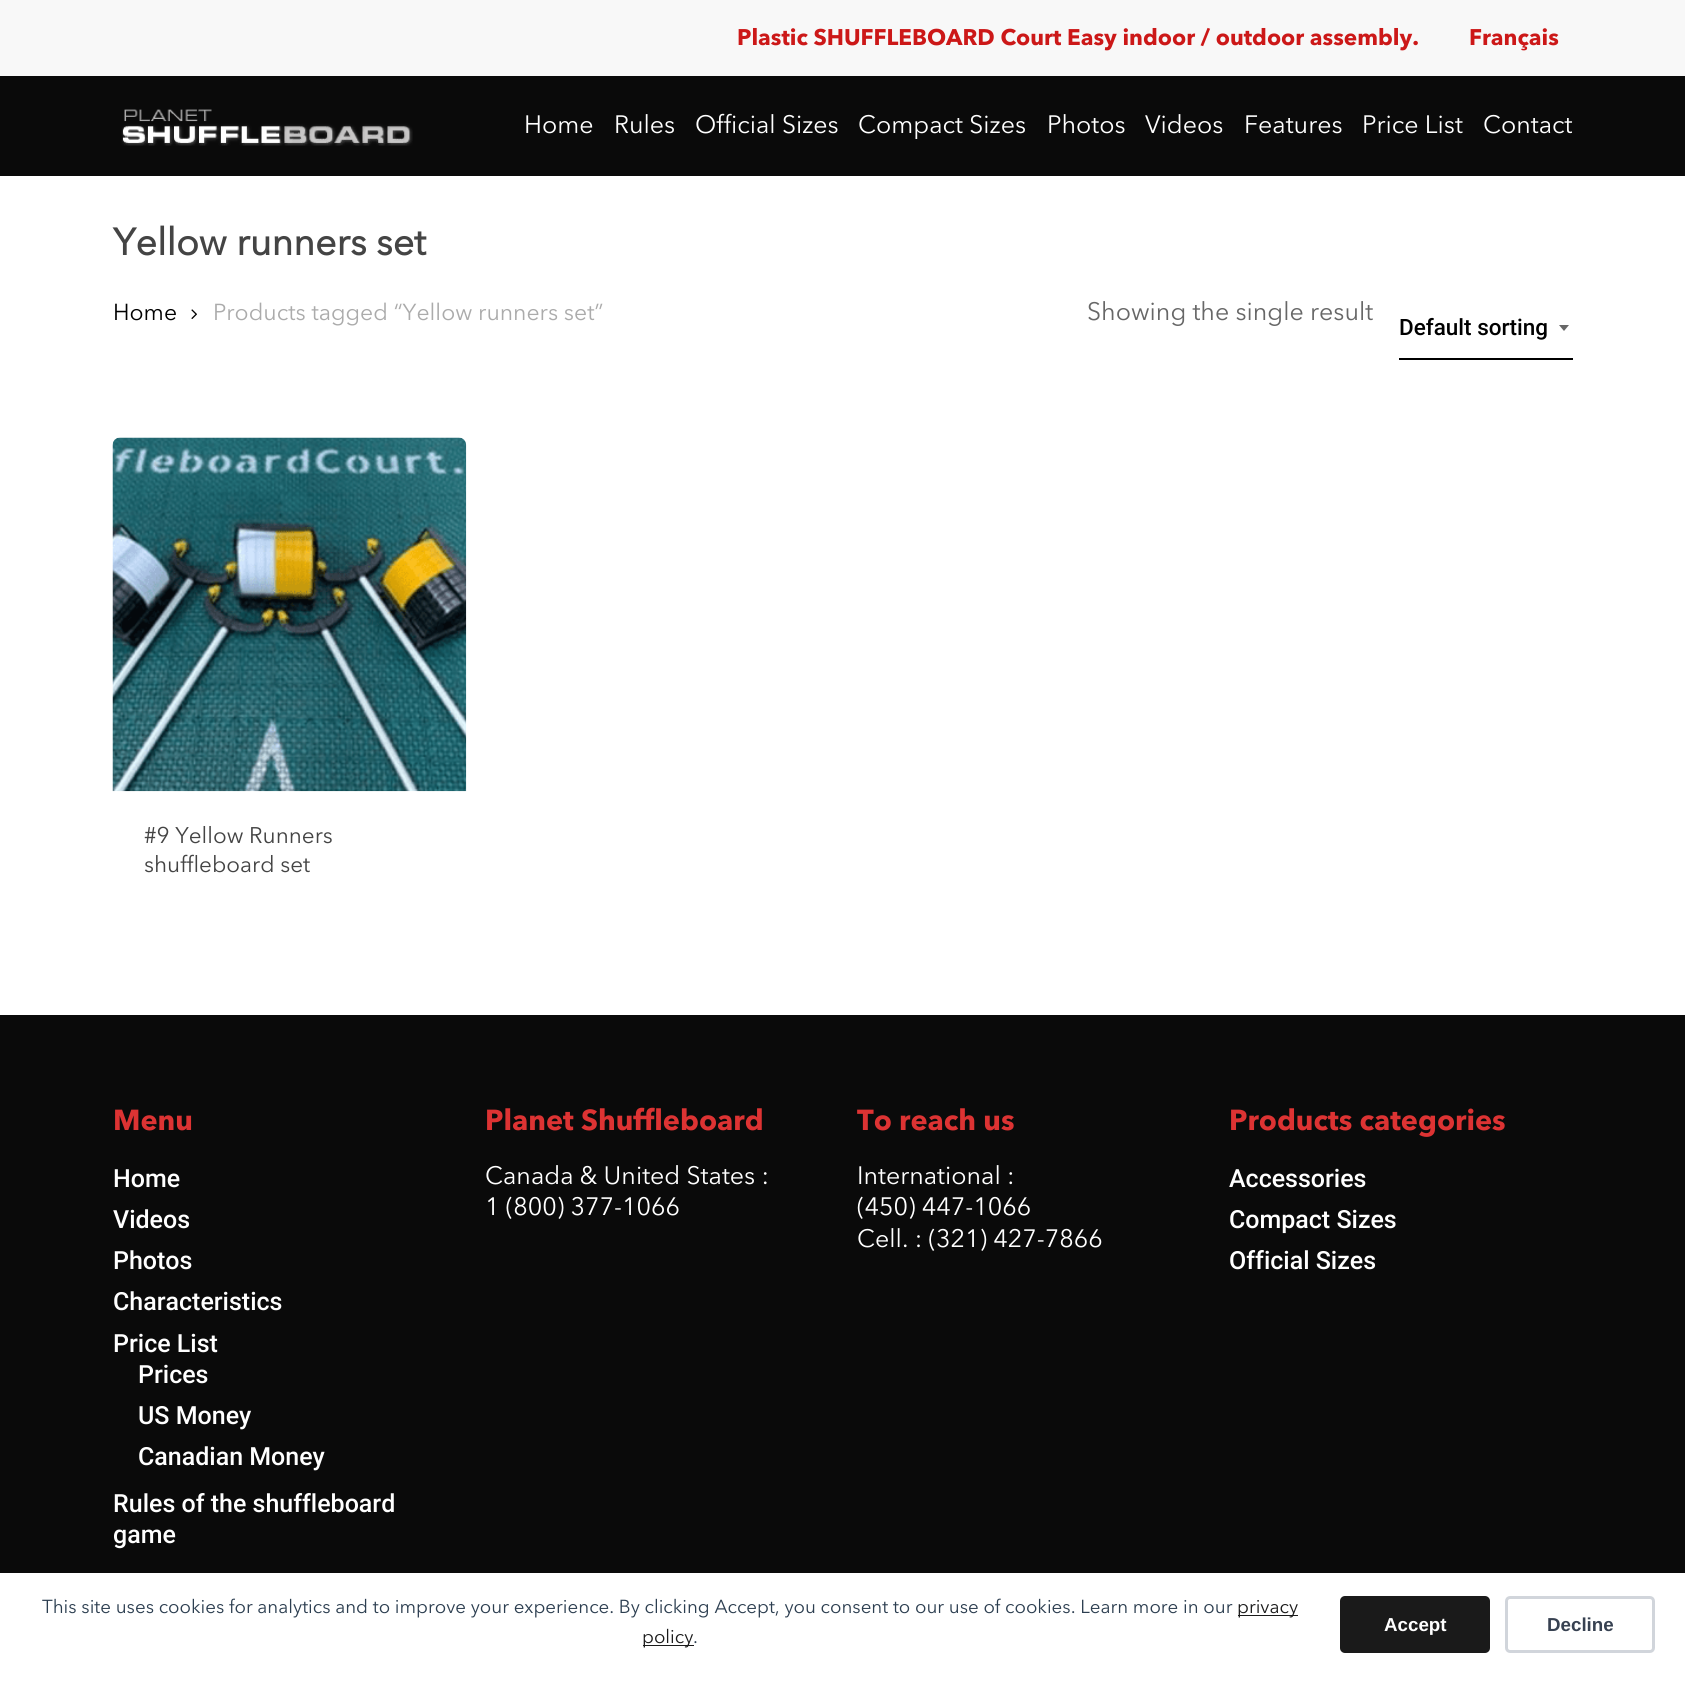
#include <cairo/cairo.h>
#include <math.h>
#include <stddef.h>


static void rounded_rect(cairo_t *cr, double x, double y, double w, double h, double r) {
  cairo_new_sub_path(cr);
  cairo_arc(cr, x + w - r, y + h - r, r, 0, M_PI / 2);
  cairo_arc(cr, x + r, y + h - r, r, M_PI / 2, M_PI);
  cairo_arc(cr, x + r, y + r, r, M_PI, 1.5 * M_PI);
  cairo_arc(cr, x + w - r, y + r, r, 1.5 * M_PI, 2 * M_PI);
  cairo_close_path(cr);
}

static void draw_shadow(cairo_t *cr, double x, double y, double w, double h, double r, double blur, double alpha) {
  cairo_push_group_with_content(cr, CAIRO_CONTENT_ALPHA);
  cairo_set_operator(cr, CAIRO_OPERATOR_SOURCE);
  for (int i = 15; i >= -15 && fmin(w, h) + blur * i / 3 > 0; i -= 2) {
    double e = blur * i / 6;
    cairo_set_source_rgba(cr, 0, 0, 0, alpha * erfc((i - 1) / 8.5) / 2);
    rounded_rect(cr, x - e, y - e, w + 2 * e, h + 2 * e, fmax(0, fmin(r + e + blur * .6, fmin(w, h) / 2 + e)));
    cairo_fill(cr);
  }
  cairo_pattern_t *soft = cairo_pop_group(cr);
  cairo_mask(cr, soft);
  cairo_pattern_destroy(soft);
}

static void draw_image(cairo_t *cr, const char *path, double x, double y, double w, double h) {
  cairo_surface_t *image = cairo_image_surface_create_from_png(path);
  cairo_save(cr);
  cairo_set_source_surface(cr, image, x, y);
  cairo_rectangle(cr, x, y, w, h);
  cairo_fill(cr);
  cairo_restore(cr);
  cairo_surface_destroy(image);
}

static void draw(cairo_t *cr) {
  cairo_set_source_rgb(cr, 1, 1, 1);
  cairo_paint(cr);
  cairo_set_source_rgb(cr, 248 / 255.0, 248 / 255.0, 248 / 255.0);
  cairo_rectangle(cr, 0, 0, 1685, 76);
  cairo_fill(cr);
  cairo_set_source_rgb(cr, 10 / 255.0, 10 / 255.0, 10 / 255.0);
  cairo_rectangle(cr, 0, 76, 1685, 100);
  cairo_fill(cr);
  draw_image(cr, "images/1.png", 121, 109, 292, 37);
  draw_image(cr, "images/2.png", 191, 309, 6, 10);
  cairo_set_source_rgb(cr, 0, 0, 0);
  cairo_rectangle(cr, 1399, 358, 174, 2);
  cairo_fill(cr);
  cairo_set_source_rgb(cr, 103 / 255.0, 103 / 255.0, 103 / 255.0);
  cairo_new_path(cr);
  cairo_move_to(cr, 1559, 325);
  cairo_line_to(cr, 1569, 325);
  cairo_line_to(cr, 1564, 331);
  cairo_close_path(cr);
  cairo_fill(cr);
  draw_image(cr, "images/3.png", 112, 437, 355, 355);
  cairo_set_source_rgb(cr, 10 / 255.0, 10 / 255.0, 10 / 255.0);
  cairo_rectangle(cr, 0, 1015, 1685, 558);
  cairo_fill(cr);
  cairo_set_source_rgb(cr, 0, 0, 0);
  draw_shadow(cr, 0, 1570, 1685, 133, 0, 6, 0.08);
  cairo_set_source_rgb(cr, 1, 1, 1);
  cairo_rectangle(cr, 0, 1573, 1685, 131);
  cairo_fill(cr);
  cairo_set_source_rgb(cr, 26 / 255.0, 26 / 255.0, 26 / 255.0);
  cairo_rectangle(cr, 1238, 1615, 60, 1);
  cairo_fill(cr);
  cairo_rectangle(cr, 643, 1645, 51, 1);
  cairo_fill(cr);
  rounded_rect(cr, 1340, 1596, 150, 57, 5);
  cairo_fill(cr);
  rounded_rect(cr, 1506.5, 1597.5, 147, 54, 3.5);
  cairo_set_source_rgb(cr, 209 / 255.0, 213 / 255.0, 219 / 255.0);
  cairo_set_line_width(cr, 3);
  cairo_stroke(cr);
  cairo_select_font_face(cr, "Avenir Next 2", CAIRO_FONT_SLANT_NORMAL, CAIRO_FONT_WEIGHT_BOLD);
  cairo_set_font_size(cr, 22.5);
  cairo_set_source_rgb(cr, 204 / 255.0, 24 / 255.0, 24 / 255.0);
  cairo_move_to(cr, 737, 45);
  cairo_show_text(cr, "Plastic SHUFFLEBOARD Court Easy indoor / outdoor assembly.");
  cairo_move_to(cr, 1469, 45);
  cairo_show_text(cr, "Français");
  cairo_select_font_face(cr, "Avenir Next", CAIRO_FONT_SLANT_NORMAL, CAIRO_FONT_WEIGHT_NORMAL);
  cairo_set_font_size(cr, 25);
  cairo_set_source_rgb(cr, 1, 1, 1);
  cairo_move_to(cr, 524, 133);
  cairo_show_text(cr, "Home");
  cairo_move_to(cr, 614, 133);
  cairo_show_text(cr, "Rules");
  cairo_move_to(cr, 695, 133);
  cairo_show_text(cr, "Official Sizes");
  cairo_move_to(cr, 858, 133);
  cairo_show_text(cr, "Compact Sizes");
  cairo_move_to(cr, 1047, 133);
  cairo_show_text(cr, "Photos");
  cairo_move_to(cr, 1145, 133);
  cairo_show_text(cr, "Videos");
  cairo_move_to(cr, 1244, 133);
  cairo_show_text(cr, "Features");
  cairo_move_to(cr, 1362, 133);
  cairo_show_text(cr, "Price List");
  cairo_move_to(cr, 1483, 133);
  cairo_show_text(cr, "Contact");
  cairo_select_font_face(cr, "Avenir Next", CAIRO_FONT_SLANT_NORMAL, CAIRO_FONT_WEIGHT_BOLD);
  cairo_set_font_size(cr, 37.5);
  cairo_set_source_rgb(cr, 68 / 255.0, 68 / 255.0, 68 / 255.0);
  cairo_move_to(cr, 113, 255);
  cairo_show_text(cr, "Yellow runners set");
  cairo_select_font_face(cr, "Avenir Next", CAIRO_FONT_SLANT_NORMAL, CAIRO_FONT_WEIGHT_NORMAL);
  cairo_set_font_size(cr, 23);
  cairo_set_source_rgb(cr, 0, 0, 0);
  cairo_move_to(cr, 113, 320);
  cairo_show_text(cr, "Home");
  cairo_set_source_rgb(cr, 171 / 255.0, 171 / 255.0, 171 / 255.0);
  cairo_move_to(cr, 213, 320);
  cairo_show_text(cr, "Products tagged “Yellow runners set”");
  cairo_set_font_size(cr, 25);
  cairo_set_source_rgb(cr, 103 / 255.0, 103 / 255.0, 103 / 255.0);
  cairo_move_to(cr, 1087, 320);
  cairo_show_text(cr, "Showing the single result");
  cairo_select_font_face(cr, "Roboto Medium", CAIRO_FONT_SLANT_NORMAL, CAIRO_FONT_WEIGHT_NORMAL);
  cairo_set_font_size(cr, 22.5);
  cairo_set_source_rgb(cr, 0, 0, 0);
  cairo_move_to(cr, 1399, 335);
  cairo_show_text(cr, "Default sorting");
  cairo_select_font_face(cr, "Avenir Next", CAIRO_FONT_SLANT_NORMAL, CAIRO_FONT_WEIGHT_NORMAL);
  cairo_set_source_rgb(cr, 68 / 255.0, 68 / 255.0, 68 / 255.0);
  cairo_move_to(cr, 144, 843);
  cairo_show_text(cr, "#9 Yellow Runners");
  cairo_move_to(cr, 144, 872);
  cairo_show_text(cr, "shuffleboard set");
  cairo_select_font_face(cr, "Avenir Next 2", CAIRO_FONT_SLANT_NORMAL, CAIRO_FONT_WEIGHT_BOLD);
  cairo_set_font_size(cr, 28.75);
  cairo_set_source_rgb(cr, 221 / 255.0, 51 / 255.0, 51 / 255.0);
  cairo_move_to(cr, 113, 1130);
  cairo_show_text(cr, "Menu");
  cairo_select_font_face(cr, "Roboto Medium", CAIRO_FONT_SLANT_NORMAL, CAIRO_FONT_WEIGHT_NORMAL);
  cairo_set_font_size(cr, 25);
  cairo_set_source_rgb(cr, 1, 1, 1);
  cairo_move_to(cr, 113, 1187);
  cairo_show_text(cr, "Home");
  cairo_move_to(cr, 113, 1228);
  cairo_show_text(cr, "Videos");
  cairo_move_to(cr, 113, 1269);
  cairo_show_text(cr, "Photos");
  cairo_move_to(cr, 113, 1310);
  cairo_show_text(cr, "Characteristics");
  cairo_move_to(cr, 113, 1352);
  cairo_show_text(cr, "Price List");
  cairo_move_to(cr, 138, 1383);
  cairo_show_text(cr, "Prices");
  cairo_move_to(cr, 138, 1424);
  cairo_show_text(cr, "US Money");
  cairo_move_to(cr, 138, 1465);
  cairo_show_text(cr, "Canadian Money");
  cairo_move_to(cr, 113, 1512);
  cairo_show_text(cr, "Rules of the shuffleboard");
  cairo_move_to(cr, 113, 1543);
  cairo_show_text(cr, "game");
  cairo_select_font_face(cr, "Avenir Next 2", CAIRO_FONT_SLANT_NORMAL, CAIRO_FONT_WEIGHT_BOLD);
  cairo_set_font_size(cr, 28.75);
  cairo_set_source_rgb(cr, 221 / 255.0, 51 / 255.0, 51 / 255.0);
  cairo_move_to(cr, 485, 1130);
  cairo_show_text(cr, "Planet Shuffleboard");
  cairo_select_font_face(cr, "Avenir Next", CAIRO_FONT_SLANT_NORMAL, CAIRO_FONT_WEIGHT_NORMAL);
  cairo_set_font_size(cr, 25);
  cairo_set_source_rgb(cr, 1, 1, 1);
  cairo_move_to(cr, 485, 1184);
  cairo_show_text(cr, "Canada & United States :");
  cairo_move_to(cr, 485, 1215);
  cairo_show_text(cr, "1 (800) 377-1066");
  cairo_select_font_face(cr, "Avenir Next 2", CAIRO_FONT_SLANT_NORMAL, CAIRO_FONT_WEIGHT_BOLD);
  cairo_set_font_size(cr, 28.75);
  cairo_set_source_rgb(cr, 221 / 255.0, 51 / 255.0, 51 / 255.0);
  cairo_move_to(cr, 857, 1130);
  cairo_show_text(cr, "To reach us");
  cairo_select_font_face(cr, "Avenir Next", CAIRO_FONT_SLANT_NORMAL, CAIRO_FONT_WEIGHT_NORMAL);
  cairo_set_font_size(cr, 25);
  cairo_set_source_rgb(cr, 1, 1, 1);
  cairo_move_to(cr, 857, 1184);
  cairo_show_text(cr, "International :");
  cairo_move_to(cr, 857, 1215);
  cairo_show_text(cr, "(450) 447-1066");
  cairo_move_to(cr, 857, 1247);
  cairo_show_text(cr, "Cell. : (321) 427-7866");
  cairo_select_font_face(cr, "Avenir Next 2", CAIRO_FONT_SLANT_NORMAL, CAIRO_FONT_WEIGHT_BOLD);
  cairo_set_font_size(cr, 28.75);
  cairo_set_source_rgb(cr, 221 / 255.0, 51 / 255.0, 51 / 255.0);
  cairo_move_to(cr, 1229, 1130);
  cairo_show_text(cr, "Products categories");
  cairo_select_font_face(cr, "Roboto Medium", CAIRO_FONT_SLANT_NORMAL, CAIRO_FONT_WEIGHT_NORMAL);
  cairo_set_font_size(cr, 25);
  cairo_set_source_rgb(cr, 1, 1, 1);
  cairo_move_to(cr, 1229, 1187);
  cairo_show_text(cr, "Accessories");
  cairo_move_to(cr, 1229, 1228);
  cairo_show_text(cr, "Compact Sizes");
  cairo_move_to(cr, 1229, 1269);
  cairo_show_text(cr, "Official Sizes");
  cairo_select_font_face(cr, "Avenir Next", CAIRO_FONT_SLANT_NORMAL, CAIRO_FONT_WEIGHT_NORMAL);
  cairo_set_font_size(cr, 18.75);
  cairo_set_source_rgb(cr, 44 / 255.0, 62 / 255.0, 80 / 255.0);
  cairo_move_to(cr, 42, 1613);
  cairo_show_text(cr, "This site uses cookies for analytics and to improve your experience. By clicking Accept, you consent to our use of cookies. Learn more in our");
  cairo_set_source_rgb(cr, 26 / 255.0, 26 / 255.0, 26 / 255.0);
  cairo_move_to(cr, 1237, 1613);
  cairo_show_text(cr, "privacy");
  cairo_move_to(cr, 642, 1643);
  cairo_show_text(cr, "policy");
  cairo_set_source_rgb(cr, 44 / 255.0, 62 / 255.0, 80 / 255.0);
  cairo_move_to(cr, 693, 1643);
  cairo_show_text(cr, ".");
  cairo_select_font_face(cr, "Liberation Sans", CAIRO_FONT_SLANT_NORMAL, CAIRO_FONT_WEIGHT_BOLD);
  cairo_set_source_rgb(cr, 1, 1, 1);
  cairo_move_to(cr, 1384, 1631);
  cairo_show_text(cr, "Accept");
  cairo_set_source_rgb(cr, 55 / 255.0, 65 / 255.0, 81 / 255.0);
  cairo_move_to(cr, 1547, 1631);
  cairo_show_text(cr, "Decline");
}

int main(void) {
  cairo_surface_t *surface = cairo_image_surface_create(CAIRO_FORMAT_RGB24, 1685, 1704);
  cairo_t *cr = cairo_create(surface);
  cairo_font_options_t *options = cairo_font_options_create();
  cairo_font_options_set_hint_metrics(options, CAIRO_HINT_METRICS_OFF);
  cairo_font_options_set_hint_style(options, CAIRO_HINT_STYLE_NONE);
  cairo_set_font_options(cr, options);
  cairo_set_miter_limit(cr, 4);
  draw(cr);
  cairo_surface_write_to_png(surface, "out.png");
  cairo_font_options_destroy(options);
  cairo_destroy(cr);
  cairo_surface_destroy(surface);
  return 0;
}
